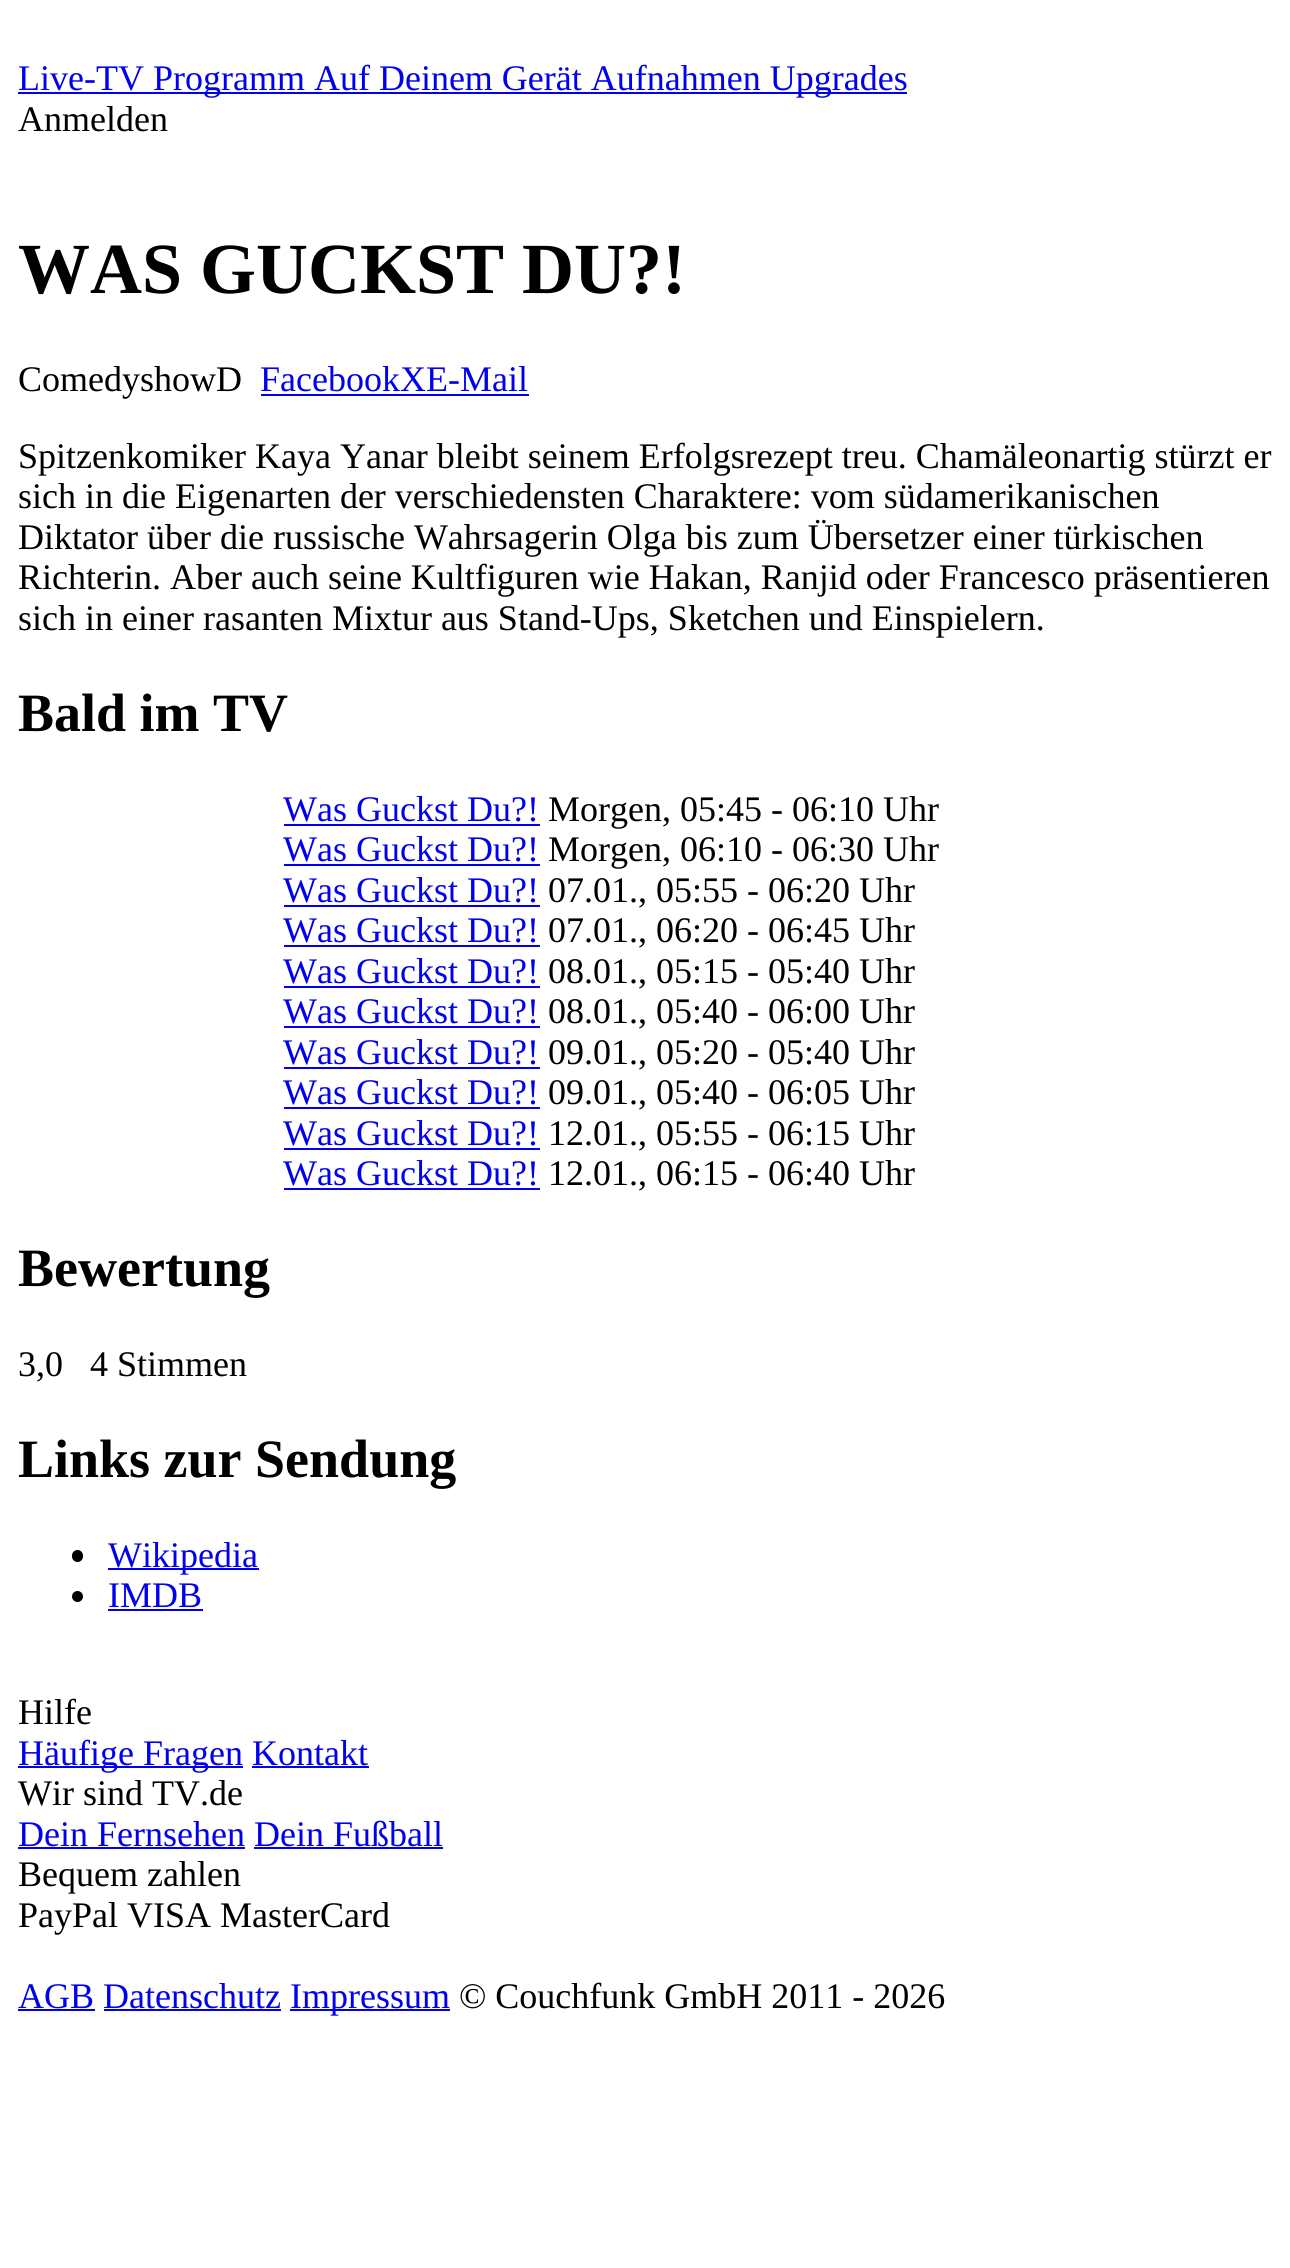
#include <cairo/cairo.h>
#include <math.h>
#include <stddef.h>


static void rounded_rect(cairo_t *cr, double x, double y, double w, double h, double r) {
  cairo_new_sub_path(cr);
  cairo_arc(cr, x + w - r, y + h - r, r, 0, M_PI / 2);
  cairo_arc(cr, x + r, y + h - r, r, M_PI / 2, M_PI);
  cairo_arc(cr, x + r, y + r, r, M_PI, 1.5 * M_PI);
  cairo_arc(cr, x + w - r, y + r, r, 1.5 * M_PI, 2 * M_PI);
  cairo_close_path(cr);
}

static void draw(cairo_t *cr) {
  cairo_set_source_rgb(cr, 1, 1, 1);
  cairo_paint(cr);
  cairo_set_source_rgb(cr, 0, 0, 238 / 255.0);
  cairo_rectangle(cr, 18, 92, 889, 2);
  cairo_fill(cr);
  cairo_rectangle(cr, 261, 394, 268, 2);
  cairo_fill(cr);
  cairo_rectangle(cr, 284, 824, 256, 2);
  cairo_fill(cr);
  cairo_rectangle(cr, 284, 864, 256, 2);
  cairo_fill(cr);
  cairo_rectangle(cr, 284, 905, 256, 2);
  cairo_fill(cr);
  cairo_rectangle(cr, 284, 945, 256, 2);
  cairo_fill(cr);
  cairo_rectangle(cr, 284, 986, 256, 2);
  cairo_fill(cr);
  cairo_rectangle(cr, 284, 1026, 256, 2);
  cairo_fill(cr);
  cairo_rectangle(cr, 284, 1067, 256, 2);
  cairo_fill(cr);
  cairo_rectangle(cr, 284, 1107, 256, 2);
  cairo_fill(cr);
  cairo_rectangle(cr, 284, 1148, 256, 2);
  cairo_fill(cr);
  cairo_rectangle(cr, 284, 1188, 256, 2);
  cairo_fill(cr);
  cairo_set_source_rgb(cr, 0, 0, 0);
  rounded_rect(cr, 72, 1550, 11, 12, 5.5);
  cairo_fill(cr);
  cairo_set_source_rgb(cr, 0, 0, 238 / 255.0);
  cairo_rectangle(cr, 108, 1568, 151, 2);
  cairo_fill(cr);
  cairo_set_source_rgb(cr, 0, 0, 0);
  cairo_arc(cr, 77.5, 1596.5, 5.5, 0, 2 * M_PI);
  cairo_fill(cr);
  cairo_set_source_rgb(cr, 0, 0, 238 / 255.0);
  cairo_rectangle(cr, 108, 1609, 95, 2);
  cairo_fill(cr);
  cairo_rectangle(cr, 18, 1766, 225, 2);
  cairo_fill(cr);
  cairo_rectangle(cr, 252, 1766, 117, 2);
  cairo_fill(cr);
  cairo_rectangle(cr, 18, 1847, 227, 2);
  cairo_fill(cr);
  cairo_rectangle(cr, 254, 1847, 189, 2);
  cairo_fill(cr);
  cairo_rectangle(cr, 18, 2009, 77, 2);
  cairo_fill(cr);
  cairo_rectangle(cr, 290, 2009, 160, 2);
  cairo_fill(cr);
  cairo_rectangle(cr, 104, 2009, 177, 2);
  cairo_fill(cr);
  cairo_select_font_face(cr, "Liberation Serif", CAIRO_FONT_SLANT_NORMAL, CAIRO_FONT_WEIGHT_NORMAL);
  cairo_set_font_size(cr, 36);
  cairo_move_to(cr, 18, 90);
  cairo_show_text(cr, "Live-TV Programm Auf Deinem Gerät Aufnahmen Upgrades");
  cairo_set_source_rgb(cr, 0, 0, 0);
  cairo_move_to(cr, 18, 131);
  cairo_show_text(cr, "Anmelden");
  cairo_select_font_face(cr, "Liberation Serif", CAIRO_FONT_SLANT_NORMAL, CAIRO_FONT_WEIGHT_BOLD);
  cairo_set_font_size(cr, 72);
  cairo_move_to(cr, 18, 293);
  cairo_show_text(cr, "WAS GUCKST DU?!");
  cairo_select_font_face(cr, "Liberation Serif", CAIRO_FONT_SLANT_NORMAL, CAIRO_FONT_WEIGHT_NORMAL);
  cairo_set_font_size(cr, 36);
  cairo_move_to(cr, 18, 391);
  cairo_show_text(cr, "ComedyshowD");
  cairo_set_source_rgb(cr, 0, 0, 238 / 255.0);
  cairo_move_to(cr, 260, 391);
  cairo_show_text(cr, "FacebookXE-Mail");
  cairo_set_source_rgb(cr, 0, 0, 0);
  cairo_move_to(cr, 18, 468);
  cairo_show_text(cr, "Spitzenkomiker Kaya Yanar bleibt seinem Erfolgsrezept treu. Chamäleonartig stürzt er");
  cairo_move_to(cr, 18, 508);
  cairo_show_text(cr, "sich in die Eigenarten der verschiedensten Charaktere: vom südamerikanischen");
  cairo_move_to(cr, 18, 549);
  cairo_show_text(cr, "Diktator über die russische Wahrsagerin Olga bis zum Übersetzer einer türkischen");
  cairo_move_to(cr, 18, 589);
  cairo_show_text(cr, "Richterin. Aber auch seine Kultfiguren wie Hakan, Ranjid oder Francesco präsentieren");
  cairo_move_to(cr, 18, 630);
  cairo_show_text(cr, "sich in einer rasanten Mixtur aus Stand-Ups, Sketchen und Einspielern.");
  cairo_select_font_face(cr, "Liberation Serif", CAIRO_FONT_SLANT_NORMAL, CAIRO_FONT_WEIGHT_BOLD);
  cairo_set_font_size(cr, 54);
  cairo_move_to(cr, 18, 731);
  cairo_show_text(cr, "Bald im TV");
  cairo_select_font_face(cr, "Liberation Serif", CAIRO_FONT_SLANT_NORMAL, CAIRO_FONT_WEIGHT_NORMAL);
  cairo_set_font_size(cr, 36);
  cairo_set_source_rgb(cr, 0, 0, 238 / 255.0);
  cairo_move_to(cr, 283, 821);
  cairo_show_text(cr, "Was Guckst Du?!");
  cairo_set_source_rgb(cr, 0, 0, 0);
  cairo_move_to(cr, 548, 821);
  cairo_show_text(cr, "Morgen, 05:45 - 06:10 Uhr");
  cairo_set_source_rgb(cr, 0, 0, 238 / 255.0);
  cairo_move_to(cr, 283, 861);
  cairo_show_text(cr, "Was Guckst Du?!");
  cairo_set_source_rgb(cr, 0, 0, 0);
  cairo_move_to(cr, 548, 861);
  cairo_show_text(cr, "Morgen, 06:10 - 06:30 Uhr");
  cairo_set_source_rgb(cr, 0, 0, 238 / 255.0);
  cairo_move_to(cr, 283, 902);
  cairo_show_text(cr, "Was Guckst Du?!");
  cairo_set_source_rgb(cr, 0, 0, 0);
  cairo_move_to(cr, 548, 902);
  cairo_show_text(cr, "07.01., 05:55 - 06:20 Uhr");
  cairo_set_source_rgb(cr, 0, 0, 238 / 255.0);
  cairo_move_to(cr, 283, 942);
  cairo_show_text(cr, "Was Guckst Du?!");
  cairo_set_source_rgb(cr, 0, 0, 0);
  cairo_move_to(cr, 548, 942);
  cairo_show_text(cr, "07.01., 06:20 - 06:45 Uhr");
  cairo_set_source_rgb(cr, 0, 0, 238 / 255.0);
  cairo_move_to(cr, 283, 983);
  cairo_show_text(cr, "Was Guckst Du?!");
  cairo_set_source_rgb(cr, 0, 0, 0);
  cairo_move_to(cr, 548, 983);
  cairo_show_text(cr, "08.01., 05:15 - 05:40 Uhr");
  cairo_set_source_rgb(cr, 0, 0, 238 / 255.0);
  cairo_move_to(cr, 283, 1023);
  cairo_show_text(cr, "Was Guckst Du?!");
  cairo_set_source_rgb(cr, 0, 0, 0);
  cairo_move_to(cr, 548, 1023);
  cairo_show_text(cr, "08.01., 05:40 - 06:00 Uhr");
  cairo_set_source_rgb(cr, 0, 0, 238 / 255.0);
  cairo_move_to(cr, 283, 1064);
  cairo_show_text(cr, "Was Guckst Du?!");
  cairo_set_source_rgb(cr, 0, 0, 0);
  cairo_move_to(cr, 548, 1064);
  cairo_show_text(cr, "09.01., 05:20 - 05:40 Uhr");
  cairo_set_source_rgb(cr, 0, 0, 238 / 255.0);
  cairo_move_to(cr, 283, 1104);
  cairo_show_text(cr, "Was Guckst Du?!");
  cairo_set_source_rgb(cr, 0, 0, 0);
  cairo_move_to(cr, 548, 1104);
  cairo_show_text(cr, "09.01., 05:40 - 06:05 Uhr");
  cairo_set_source_rgb(cr, 0, 0, 238 / 255.0);
  cairo_move_to(cr, 283, 1145);
  cairo_show_text(cr, "Was Guckst Du?!");
  cairo_set_source_rgb(cr, 0, 0, 0);
  cairo_move_to(cr, 548, 1145);
  cairo_show_text(cr, "12.01., 05:55 - 06:15 Uhr");
  cairo_set_source_rgb(cr, 0, 0, 238 / 255.0);
  cairo_move_to(cr, 283, 1185);
  cairo_show_text(cr, "Was Guckst Du?!");
  cairo_set_source_rgb(cr, 0, 0, 0);
  cairo_move_to(cr, 548, 1185);
  cairo_show_text(cr, "12.01., 06:15 - 06:40 Uhr");
  cairo_select_font_face(cr, "Liberation Serif", CAIRO_FONT_SLANT_NORMAL, CAIRO_FONT_WEIGHT_BOLD);
  cairo_set_font_size(cr, 54);
  cairo_move_to(cr, 18, 1286);
  cairo_show_text(cr, "Bewertung");
  cairo_select_font_face(cr, "Liberation Serif", CAIRO_FONT_SLANT_NORMAL, CAIRO_FONT_WEIGHT_NORMAL);
  cairo_set_font_size(cr, 36);
  cairo_move_to(cr, 18, 1376);
  cairo_show_text(cr, "3,0");
  cairo_move_to(cr, 90, 1376);
  cairo_show_text(cr, "4 Stimmen");
  cairo_select_font_face(cr, "Liberation Serif", CAIRO_FONT_SLANT_NORMAL, CAIRO_FONT_WEIGHT_BOLD);
  cairo_set_font_size(cr, 54);
  cairo_move_to(cr, 18, 1477);
  cairo_show_text(cr, "Links zur Sendung");
  cairo_select_font_face(cr, "Liberation Serif", CAIRO_FONT_SLANT_NORMAL, CAIRO_FONT_WEIGHT_NORMAL);
  cairo_set_font_size(cr, 36);
  cairo_set_source_rgb(cr, 0, 0, 238 / 255.0);
  cairo_move_to(cr, 108, 1567);
  cairo_show_text(cr, "Wikipedia");
  cairo_move_to(cr, 108, 1607);
  cairo_show_text(cr, "IMDB");
  cairo_set_source_rgb(cr, 0, 0, 0);
  cairo_move_to(cr, 18, 1724);
  cairo_show_text(cr, "Hilfe");
  cairo_set_source_rgb(cr, 0, 0, 238 / 255.0);
  cairo_move_to(cr, 18, 1765);
  cairo_show_text(cr, "Häufige Fragen Kontakt");
  cairo_set_source_rgb(cr, 0, 0, 0);
  cairo_move_to(cr, 18, 1805);
  cairo_show_text(cr, "Wir sind TV.de");
  cairo_set_source_rgb(cr, 0, 0, 238 / 255.0);
  cairo_move_to(cr, 18, 1846);
  cairo_show_text(cr, "Dein Fernsehen Dein Fußball");
  cairo_set_source_rgb(cr, 0, 0, 0);
  cairo_move_to(cr, 18, 1886);
  cairo_show_text(cr, "Bequem zahlen");
  cairo_move_to(cr, 18, 1927);
  cairo_show_text(cr, "PayPal VISA MasterCard");
  cairo_set_source_rgb(cr, 0, 0, 238 / 255.0);
  cairo_move_to(cr, 18, 2008);
  cairo_show_text(cr, "AGB Datenschutz");
  cairo_move_to(cr, 290, 2008);
  cairo_show_text(cr, "Impressum");
  cairo_set_source_rgb(cr, 0, 0, 0);
  cairo_move_to(cr, 459, 2008);
  cairo_show_text(cr, "© Couchfunk GmbH 2011 - 2026");
}

int main(void) {
  cairo_surface_t *surface = cairo_image_surface_create(CAIRO_FORMAT_RGB24, 1290, 2268);
  cairo_t *cr = cairo_create(surface);
  cairo_font_options_t *options = cairo_font_options_create();
  cairo_font_options_set_hint_metrics(options, CAIRO_HINT_METRICS_OFF);
  cairo_font_options_set_hint_style(options, CAIRO_HINT_STYLE_NONE);
  cairo_set_font_options(cr, options);
  cairo_set_miter_limit(cr, 4);
  draw(cr);
  cairo_surface_write_to_png(surface, "out.png");
  cairo_font_options_destroy(options);
  cairo_destroy(cr);
  cairo_surface_destroy(surface);
  return 0;
}
